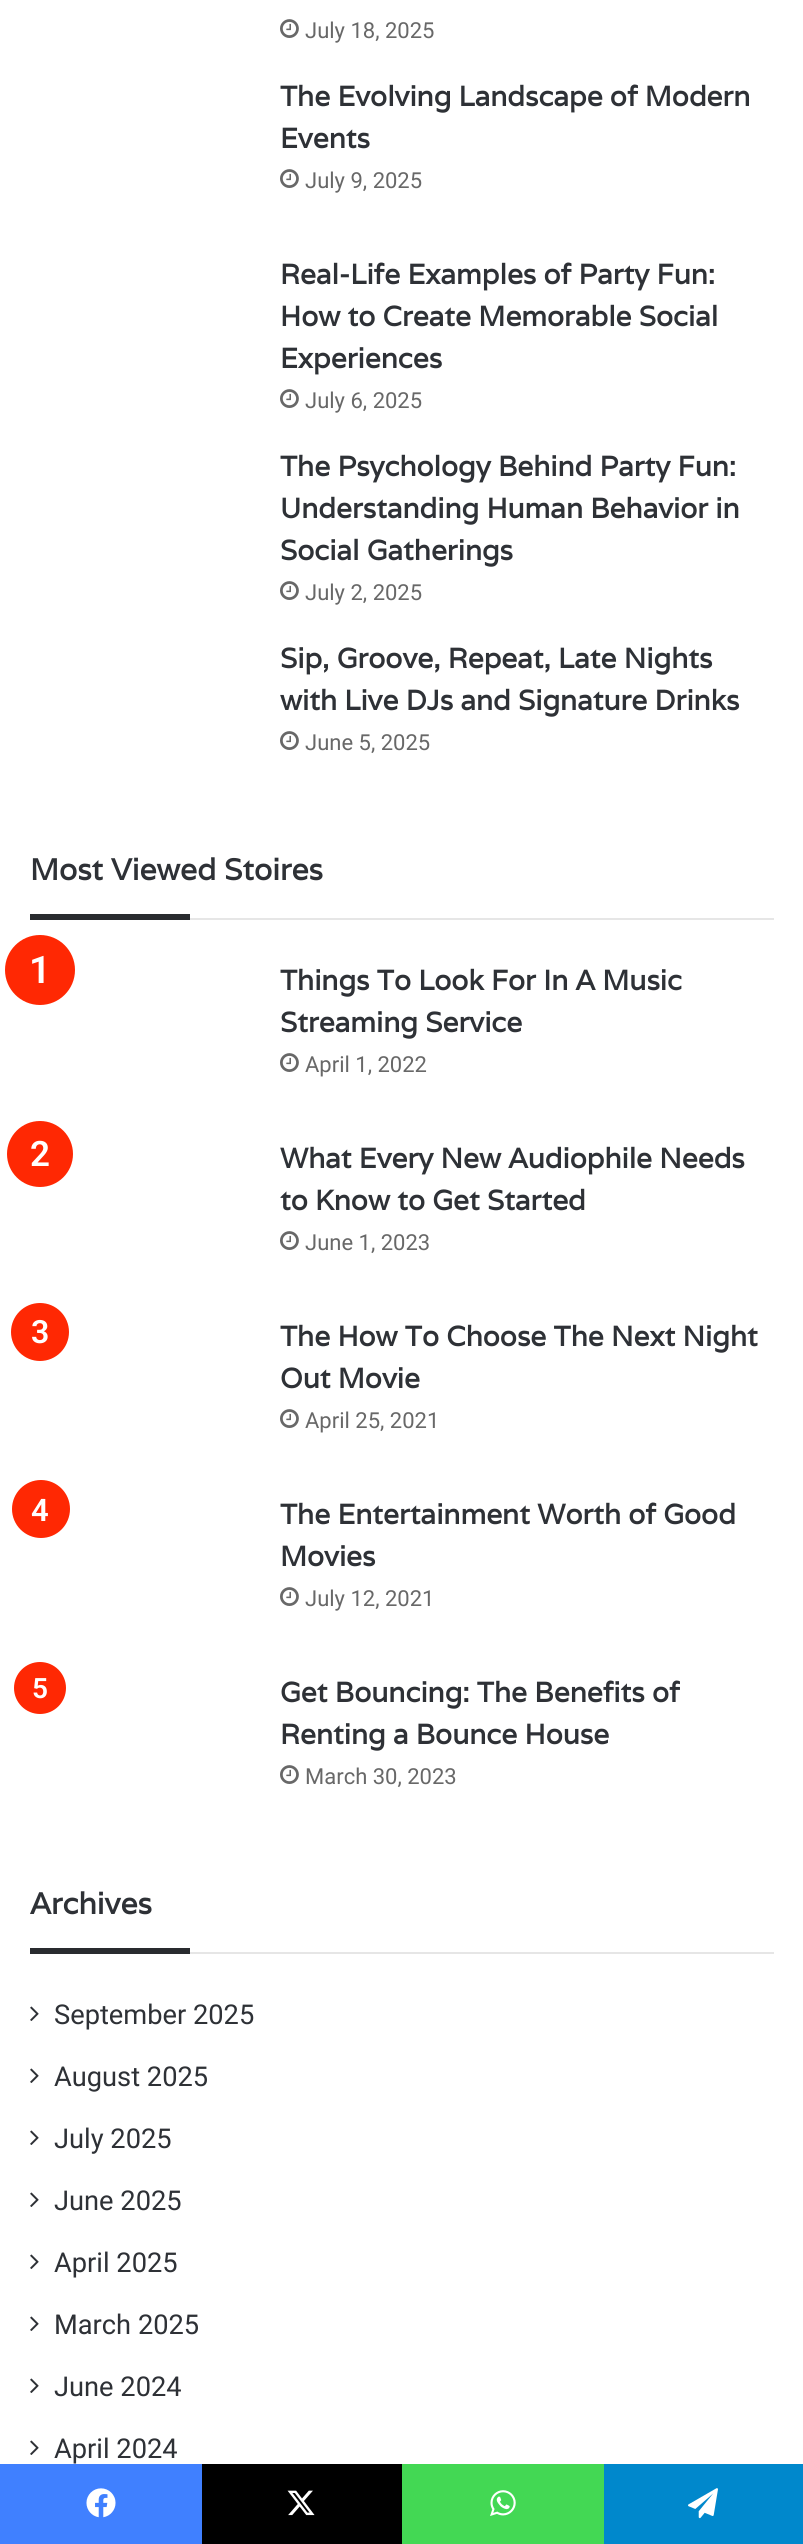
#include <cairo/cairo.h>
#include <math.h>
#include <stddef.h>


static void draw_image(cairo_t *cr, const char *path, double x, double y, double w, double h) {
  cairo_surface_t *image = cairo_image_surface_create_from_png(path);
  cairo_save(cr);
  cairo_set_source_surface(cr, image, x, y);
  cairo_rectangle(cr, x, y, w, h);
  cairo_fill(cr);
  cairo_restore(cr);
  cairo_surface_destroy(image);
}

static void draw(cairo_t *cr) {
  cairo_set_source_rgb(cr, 1, 1, 1);
  cairo_paint(cr);
  draw_image(cr, "images/1.png", 280, 19, 19, 19);
  draw_image(cr, "images/1.png", 280, 169, 19, 19);
  draw_image(cr, "images/1.png", 280, 389, 19, 19);
  draw_image(cr, "images/1.png", 280, 581, 19, 19);
  draw_image(cr, "images/1.png", 280, 731, 19, 19);
  cairo_set_source_rgb(cr, 230 / 255.0, 230 / 255.0, 230 / 255.0);
  cairo_rectangle(cr, 190, 918, 584, 2);
  cairo_fill(cr);
  cairo_set_source_rgb(cr, 41 / 255.0, 43 / 255.0, 47 / 255.0);
  cairo_rectangle(cr, 30, 914, 160, 6);
  cairo_fill(cr);
  cairo_set_source_rgb(cr, 1, 40 / 255.0, 3 / 255.0);
  cairo_arc(cr, 40, 970, 37.5, 0, 2 * M_PI);
  cairo_fill_preserve(cr);
  cairo_set_source_rgb(cr, 1, 1, 1);
  cairo_set_line_width(cr, 5);
  cairo_stroke(cr);
  draw_image(cr, "images/1.png", 280, 1053, 19, 19);
  cairo_set_source_rgb(cr, 1, 40 / 255.0, 3 / 255.0);
  cairo_arc(cr, 40, 1154, 35.5, 0, 2 * M_PI);
  cairo_fill_preserve(cr);
  cairo_set_source_rgb(cr, 1, 1, 1);
  cairo_stroke(cr);
  draw_image(cr, "images/1.png", 280, 1231, 19, 19);
  cairo_set_source_rgb(cr, 1, 40 / 255.0, 3 / 255.0);
  cairo_arc(cr, 40, 1332, 31.5, 0, 2 * M_PI);
  cairo_fill_preserve(cr);
  cairo_set_source_rgb(cr, 1, 1, 1);
  cairo_stroke(cr);
  draw_image(cr, "images/1.png", 280, 1409, 19, 19);
  cairo_set_source_rgb(cr, 1, 40 / 255.0, 3 / 255.0);
  cairo_arc(cr, 41, 1509, 31, 0, 2 * M_PI);
  cairo_fill_preserve(cr);
  cairo_set_source_rgb(cr, 1, 1, 1);
  cairo_set_line_width(cr, 4);
  cairo_stroke(cr);
  draw_image(cr, "images/1.png", 280, 1587, 19, 19);
  cairo_set_source_rgb(cr, 1, 40 / 255.0, 3 / 255.0);
  cairo_arc(cr, 40, 1688, 28, 0, 2 * M_PI);
  cairo_fill_preserve(cr);
  cairo_set_source_rgb(cr, 1, 1, 1);
  cairo_stroke(cr);
  draw_image(cr, "images/1.png", 280, 1765, 19, 19);
  cairo_set_source_rgb(cr, 230 / 255.0, 230 / 255.0, 230 / 255.0);
  cairo_rectangle(cr, 190, 1952, 584, 2);
  cairo_fill(cr);
  cairo_set_source_rgb(cr, 41 / 255.0, 43 / 255.0, 47 / 255.0);
  cairo_rectangle(cr, 30, 1948, 160, 6);
  cairo_fill(cr);
  draw_image(cr, "images/2.png", 30, 2006, 9, 15);
  draw_image(cr, "images/2.png", 30, 2068, 9, 15);
  draw_image(cr, "images/2.png", 30, 2130, 9, 15);
  draw_image(cr, "images/2.png", 30, 2192, 9, 15);
  draw_image(cr, "images/2.png", 30, 2254, 9, 15);
  draw_image(cr, "images/2.png", 30, 2316, 9, 15);
  draw_image(cr, "images/2.png", 30, 2378, 9, 15);
  draw_image(cr, "images/2.png", 30, 2440, 9, 15);
  cairo_set_source_rgb(cr, 64 / 255.0, 128 / 255.0, 1);
  cairo_rectangle(cr, 0, 2464, 202, 80);
  cairo_fill(cr);
  draw_image(cr, "images/3.png", 86, 2488, 30, 30);
  cairo_set_source_rgb(cr, 0, 0, 0);
  cairo_rectangle(cr, 202, 2464, 200, 80);
  cairo_fill(cr);
  draw_image(cr, "images/4.png", 287, 2490, 28, 26);
  cairo_set_source_rgb(cr, 67 / 255.0, 216 / 255.0, 84 / 255.0);
  cairo_rectangle(cr, 402, 2464, 202, 80);
  cairo_fill(cr);
  draw_image(cr, "images/5.png", 490, 2490, 26, 26);
  cairo_set_source_rgb(cr, 0, 136 / 255.0, 204 / 255.0);
  cairo_rectangle(cr, 604, 2464, 199, 80);
  cairo_fill(cr);
  draw_image(cr, "images/6.png", 688, 2488, 30, 31);
  cairo_select_font_face(cr, "Roboto", CAIRO_FONT_SLANT_NORMAL, CAIRO_FONT_WEIGHT_NORMAL);
  cairo_set_font_size(cr, 22);
  cairo_set_source_rgb(cr, 104 / 255.0, 104 / 255.0, 104 / 255.0);
  cairo_move_to(cr, 305, 38);
  cairo_show_text(cr, "July 18, 2025");
  cairo_select_font_face(cr, "Varela", CAIRO_FONT_SLANT_NORMAL, CAIRO_FONT_WEIGHT_BOLD);
  cairo_set_font_size(cr, 28);
  cairo_set_source_rgb(cr, 46 / 255.0, 49 / 255.0, 54 / 255.0);
  cairo_move_to(cr, 280, 106);
  cairo_show_text(cr, "The Evolving Landscape of Modern");
  cairo_move_to(cr, 280, 148);
  cairo_show_text(cr, "Events");
  cairo_select_font_face(cr, "Roboto", CAIRO_FONT_SLANT_NORMAL, CAIRO_FONT_WEIGHT_NORMAL);
  cairo_set_font_size(cr, 22);
  cairo_set_source_rgb(cr, 104 / 255.0, 104 / 255.0, 104 / 255.0);
  cairo_move_to(cr, 305, 188);
  cairo_show_text(cr, "July 9, 2025");
  cairo_select_font_face(cr, "Varela", CAIRO_FONT_SLANT_NORMAL, CAIRO_FONT_WEIGHT_BOLD);
  cairo_set_font_size(cr, 28);
  cairo_set_source_rgb(cr, 46 / 255.0, 49 / 255.0, 54 / 255.0);
  cairo_move_to(cr, 280, 284);
  cairo_show_text(cr, "Real-Life Examples of Party Fun:");
  cairo_move_to(cr, 280, 326);
  cairo_show_text(cr, "How to Create Memorable Social");
  cairo_move_to(cr, 280, 368);
  cairo_show_text(cr, "Experiences");
  cairo_select_font_face(cr, "Roboto", CAIRO_FONT_SLANT_NORMAL, CAIRO_FONT_WEIGHT_NORMAL);
  cairo_set_font_size(cr, 22);
  cairo_set_source_rgb(cr, 104 / 255.0, 104 / 255.0, 104 / 255.0);
  cairo_move_to(cr, 305, 408);
  cairo_show_text(cr, "July 6, 2025");
  cairo_select_font_face(cr, "Varela", CAIRO_FONT_SLANT_NORMAL, CAIRO_FONT_WEIGHT_BOLD);
  cairo_set_font_size(cr, 28);
  cairo_set_source_rgb(cr, 46 / 255.0, 49 / 255.0, 54 / 255.0);
  cairo_move_to(cr, 280, 476);
  cairo_show_text(cr, "The Psychology Behind Party Fun:");
  cairo_move_to(cr, 280, 518);
  cairo_show_text(cr, "Understanding Human Behavior in");
  cairo_move_to(cr, 280, 560);
  cairo_show_text(cr, "Social Gatherings");
  cairo_select_font_face(cr, "Roboto", CAIRO_FONT_SLANT_NORMAL, CAIRO_FONT_WEIGHT_NORMAL);
  cairo_set_font_size(cr, 22);
  cairo_set_source_rgb(cr, 104 / 255.0, 104 / 255.0, 104 / 255.0);
  cairo_move_to(cr, 305, 600);
  cairo_show_text(cr, "July 2, 2025");
  cairo_select_font_face(cr, "Varela", CAIRO_FONT_SLANT_NORMAL, CAIRO_FONT_WEIGHT_BOLD);
  cairo_set_font_size(cr, 28);
  cairo_set_source_rgb(cr, 46 / 255.0, 49 / 255.0, 54 / 255.0);
  cairo_move_to(cr, 280, 668);
  cairo_show_text(cr, "Sip, Groove, Repeat, Late Nights");
  cairo_move_to(cr, 280, 710);
  cairo_show_text(cr, "with Live DJs and Signature Drinks");
  cairo_select_font_face(cr, "Roboto", CAIRO_FONT_SLANT_NORMAL, CAIRO_FONT_WEIGHT_NORMAL);
  cairo_set_font_size(cr, 22);
  cairo_set_source_rgb(cr, 104 / 255.0, 104 / 255.0, 104 / 255.0);
  cairo_move_to(cr, 305, 750);
  cairo_show_text(cr, "June 5, 2025");
  cairo_select_font_face(cr, "Varela", CAIRO_FONT_SLANT_NORMAL, CAIRO_FONT_WEIGHT_BOLD);
  cairo_set_font_size(cr, 30);
  cairo_set_source_rgb(cr, 46 / 255.0, 49 / 255.0, 54 / 255.0);
  cairo_move_to(cr, 30, 880);
  cairo_show_text(cr, "Most Viewed Stoires");
  cairo_select_font_face(cr, "Roboto SemiBold", CAIRO_FONT_SLANT_NORMAL, CAIRO_FONT_WEIGHT_NORMAL);
  cairo_set_font_size(cr, 38);
  cairo_set_source_rgb(cr, 1, 1, 1);
  cairo_move_to(cr, 29, 983);
  cairo_show_text(cr, "1");
  cairo_select_font_face(cr, "Varela", CAIRO_FONT_SLANT_NORMAL, CAIRO_FONT_WEIGHT_BOLD);
  cairo_set_font_size(cr, 28);
  cairo_set_source_rgb(cr, 46 / 255.0, 49 / 255.0, 54 / 255.0);
  cairo_move_to(cr, 280, 990);
  cairo_show_text(cr, "Things To Look For In A Music");
  cairo_move_to(cr, 280, 1032);
  cairo_show_text(cr, "Streaming Service");
  cairo_select_font_face(cr, "Roboto", CAIRO_FONT_SLANT_NORMAL, CAIRO_FONT_WEIGHT_NORMAL);
  cairo_set_font_size(cr, 22);
  cairo_set_source_rgb(cr, 104 / 255.0, 104 / 255.0, 104 / 255.0);
  cairo_move_to(cr, 305, 1072);
  cairo_show_text(cr, "April 1, 2022");
  cairo_select_font_face(cr, "Roboto SemiBold", CAIRO_FONT_SLANT_NORMAL, CAIRO_FONT_WEIGHT_NORMAL);
  cairo_set_font_size(cr, 35);
  cairo_set_source_rgb(cr, 1, 1, 1);
  cairo_move_to(cr, 30, 1166);
  cairo_show_text(cr, "2");
  cairo_select_font_face(cr, "Varela", CAIRO_FONT_SLANT_NORMAL, CAIRO_FONT_WEIGHT_BOLD);
  cairo_set_font_size(cr, 28);
  cairo_set_source_rgb(cr, 46 / 255.0, 49 / 255.0, 54 / 255.0);
  cairo_move_to(cr, 280, 1168);
  cairo_show_text(cr, "What Every New Audiophile Needs");
  cairo_move_to(cr, 280, 1210);
  cairo_show_text(cr, "to Know to Get Started");
  cairo_select_font_face(cr, "Roboto", CAIRO_FONT_SLANT_NORMAL, CAIRO_FONT_WEIGHT_NORMAL);
  cairo_set_font_size(cr, 22);
  cairo_set_source_rgb(cr, 104 / 255.0, 104 / 255.0, 104 / 255.0);
  cairo_move_to(cr, 305, 1250);
  cairo_show_text(cr, "June 1, 2023");
  cairo_select_font_face(cr, "Roboto SemiBold", CAIRO_FONT_SLANT_NORMAL, CAIRO_FONT_WEIGHT_NORMAL);
  cairo_set_font_size(cr, 32);
  cairo_set_source_rgb(cr, 1, 1, 1);
  cairo_move_to(cr, 31, 1343);
  cairo_show_text(cr, "3");
  cairo_select_font_face(cr, "Varela", CAIRO_FONT_SLANT_NORMAL, CAIRO_FONT_WEIGHT_BOLD);
  cairo_set_font_size(cr, 28);
  cairo_set_source_rgb(cr, 46 / 255.0, 49 / 255.0, 54 / 255.0);
  cairo_move_to(cr, 280, 1346);
  cairo_show_text(cr, "The How To Choose The Next Night");
  cairo_move_to(cr, 280, 1388);
  cairo_show_text(cr, "Out Movie");
  cairo_select_font_face(cr, "Roboto", CAIRO_FONT_SLANT_NORMAL, CAIRO_FONT_WEIGHT_NORMAL);
  cairo_set_font_size(cr, 22);
  cairo_set_source_rgb(cr, 104 / 255.0, 104 / 255.0, 104 / 255.0);
  cairo_move_to(cr, 305, 1428);
  cairo_show_text(cr, "April 25, 2021");
  cairo_select_font_face(cr, "Roboto SemiBold", CAIRO_FONT_SLANT_NORMAL, CAIRO_FONT_WEIGHT_NORMAL);
  cairo_set_font_size(cr, 31);
  cairo_set_source_rgb(cr, 1, 1, 1);
  cairo_move_to(cr, 31, 1521);
  cairo_show_text(cr, "4");
  cairo_select_font_face(cr, "Varela", CAIRO_FONT_SLANT_NORMAL, CAIRO_FONT_WEIGHT_BOLD);
  cairo_set_font_size(cr, 28);
  cairo_set_source_rgb(cr, 46 / 255.0, 49 / 255.0, 54 / 255.0);
  cairo_move_to(cr, 280, 1524);
  cairo_show_text(cr, "The Entertainment Worth of Good");
  cairo_move_to(cr, 280, 1566);
  cairo_show_text(cr, "Movies");
  cairo_select_font_face(cr, "Roboto", CAIRO_FONT_SLANT_NORMAL, CAIRO_FONT_WEIGHT_NORMAL);
  cairo_set_font_size(cr, 22);
  cairo_set_source_rgb(cr, 104 / 255.0, 104 / 255.0, 104 / 255.0);
  cairo_move_to(cr, 305, 1606);
  cairo_show_text(cr, "July 12, 2021");
  cairo_select_font_face(cr, "Roboto SemiBold", CAIRO_FONT_SLANT_NORMAL, CAIRO_FONT_WEIGHT_NORMAL);
  cairo_set_font_size(cr, 28);
  cairo_set_source_rgb(cr, 1, 1, 1);
  cairo_move_to(cr, 32, 1698);
  cairo_show_text(cr, "5");
  cairo_select_font_face(cr, "Varela", CAIRO_FONT_SLANT_NORMAL, CAIRO_FONT_WEIGHT_BOLD);
  cairo_set_source_rgb(cr, 46 / 255.0, 49 / 255.0, 54 / 255.0);
  cairo_move_to(cr, 280, 1702);
  cairo_show_text(cr, "Get Bouncing: The Benefits of");
  cairo_move_to(cr, 280, 1744);
  cairo_show_text(cr, "Renting a Bounce House");
  cairo_select_font_face(cr, "Roboto", CAIRO_FONT_SLANT_NORMAL, CAIRO_FONT_WEIGHT_NORMAL);
  cairo_set_font_size(cr, 22);
  cairo_set_source_rgb(cr, 104 / 255.0, 104 / 255.0, 104 / 255.0);
  cairo_move_to(cr, 305, 1784);
  cairo_show_text(cr, "March 30, 2023");
  cairo_select_font_face(cr, "Varela", CAIRO_FONT_SLANT_NORMAL, CAIRO_FONT_WEIGHT_BOLD);
  cairo_set_font_size(cr, 30);
  cairo_set_source_rgb(cr, 46 / 255.0, 49 / 255.0, 54 / 255.0);
  cairo_move_to(cr, 30, 1914);
  cairo_show_text(cr, "Archives");
  cairo_select_font_face(cr, "Roboto", CAIRO_FONT_SLANT_NORMAL, CAIRO_FONT_WEIGHT_NORMAL);
  cairo_set_font_size(cr, 27.25);
  cairo_move_to(cr, 54, 2024);
  cairo_show_text(cr, "September 2025");
  cairo_move_to(cr, 54, 2086);
  cairo_show_text(cr, "August 2025");
  cairo_move_to(cr, 54, 2148);
  cairo_show_text(cr, "July 2025");
  cairo_move_to(cr, 54, 2210);
  cairo_show_text(cr, "June 2025");
  cairo_move_to(cr, 54, 2272);
  cairo_show_text(cr, "April 2025");
  cairo_move_to(cr, 54, 2334);
  cairo_show_text(cr, "March 2025");
  cairo_move_to(cr, 54, 2396);
  cairo_show_text(cr, "June 2024");
  cairo_move_to(cr, 54, 2458);
  cairo_show_text(cr, "April 2024");
}

int main(void) {
  cairo_surface_t *surface = cairo_image_surface_create(CAIRO_FORMAT_RGB24, 803, 2544);
  cairo_t *cr = cairo_create(surface);
  cairo_font_options_t *options = cairo_font_options_create();
  cairo_font_options_set_hint_metrics(options, CAIRO_HINT_METRICS_OFF);
  cairo_font_options_set_hint_style(options, CAIRO_HINT_STYLE_NONE);
  cairo_set_font_options(cr, options);
  cairo_set_miter_limit(cr, 4);
  draw(cr);
  cairo_surface_write_to_png(surface, "out.png");
  cairo_font_options_destroy(options);
  cairo_destroy(cr);
  cairo_surface_destroy(surface);
  return 0;
}
